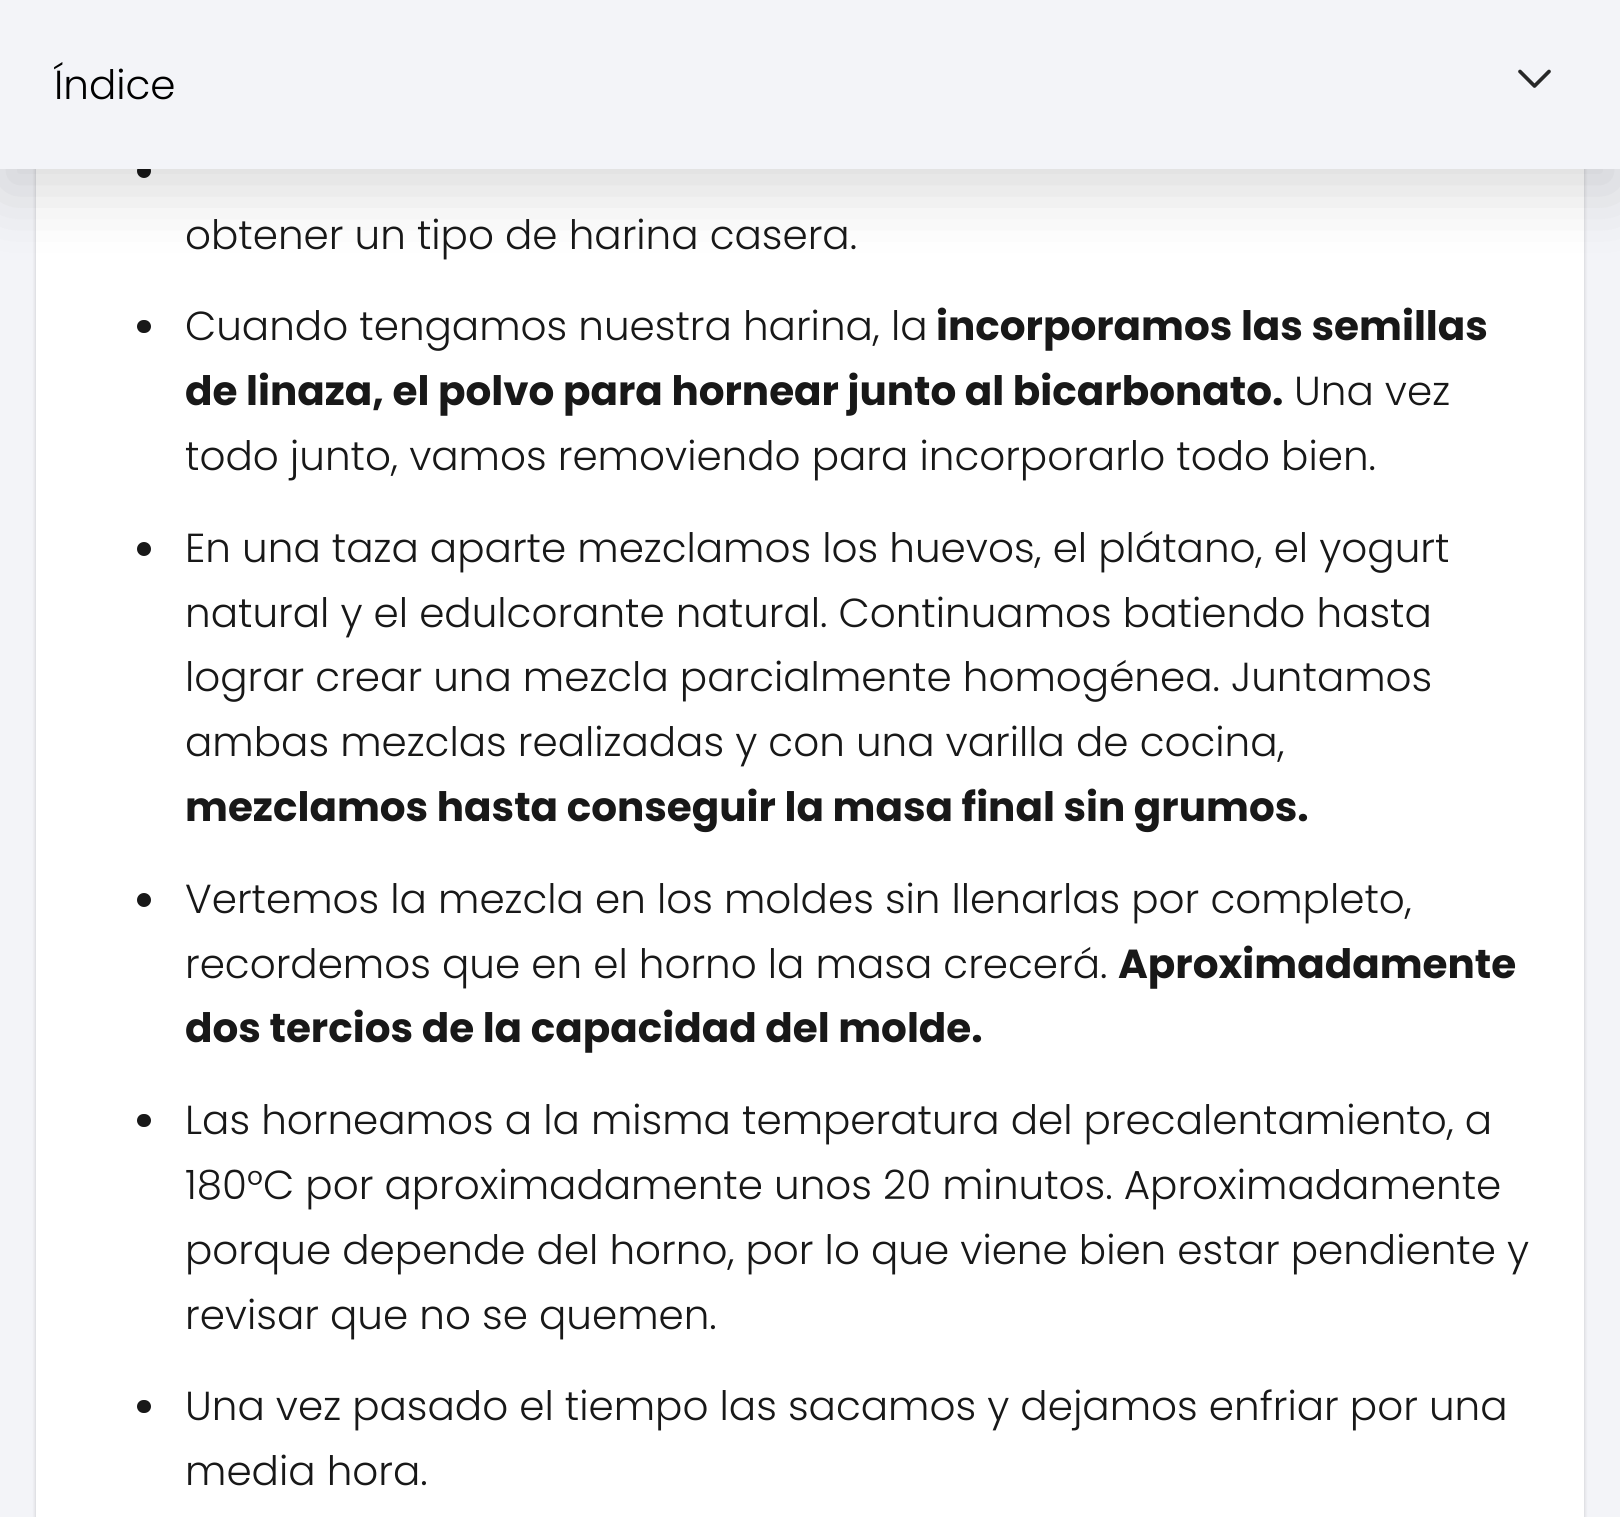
#include <cairo/cairo.h>
#include <math.h>
#include <stddef.h>


static void rounded_rect(cairo_t *cr, double x, double y, double w, double h, double r) {
  cairo_new_sub_path(cr);
  cairo_arc(cr, x + w - r, y + h - r, r, 0, M_PI / 2);
  cairo_arc(cr, x + r, y + h - r, r, M_PI / 2, M_PI);
  cairo_arc(cr, x + r, y + r, r, M_PI, 1.5 * M_PI);
  cairo_arc(cr, x + w - r, y + r, r, 1.5 * M_PI, 2 * M_PI);
  cairo_close_path(cr);
}

static void draw_shadow(cairo_t *cr, double x, double y, double w, double h, double r, double blur, double alpha) {
  cairo_push_group_with_content(cr, CAIRO_CONTENT_ALPHA);
  cairo_set_operator(cr, CAIRO_OPERATOR_SOURCE);
  for (int i = 15; i >= -15 && fmin(w, h) + blur * i / 3 > 0; i -= 2) {
    double e = blur * i / 6;
    cairo_set_source_rgba(cr, 0, 0, 0, alpha * erfc((i - 1) / 8.5) / 2);
    rounded_rect(cr, x - e, y - e, w + 2 * e, h + 2 * e, fmax(0, fmin(r + e + blur * .6, fmin(w, h) / 2 + e)));
    cairo_fill(cr);
  }
  cairo_pattern_t *soft = cairo_pop_group(cr);
  cairo_mask(cr, soft);
  cairo_pattern_destroy(soft);
}

static void draw(cairo_t *cr) {
  cairo_set_source_rgb(cr, 243 / 255.0, 244 / 255.0, 248 / 255.0);
  cairo_paint(cr);
  cairo_set_source_rgb(cr, 0, 0, 0);
  draw_shadow(cr, 36, -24, 1548, 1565, 18, 2, 0.2);
  cairo_set_source_rgb(cr, 1, 1, 1);
  cairo_rectangle(cr, 36, 169, 1548, 1348);
  cairo_fill(cr);
  cairo_set_source_rgb(cr, 24 / 255.0, 24 / 255.0, 24 / 255.0);
  cairo_arc(cr, 144, 171, 7, 0, 2 * M_PI);
  cairo_fill(cr);
  cairo_set_source_rgb(cr, 0, 0, 0);
  draw_shadow(cr, 0, 23, 1620, 168, 0, 34, 0.15);
  cairo_set_source_rgb(cr, 243 / 255.0, 244 / 255.0, 248 / 255.0);
  cairo_rectangle(cr, 0, 0, 1620, 169);
  cairo_fill(cr);
  cairo_new_path(cr);
  cairo_move_to(cr, 1520, 71.5);
  cairo_line_to(cr, 1534.5, 86);
  cairo_line_to(cr, 1549, 71.5);
  cairo_set_source_rgb(cr, 40 / 255.0, 40 / 255.0, 40 / 255.0);
  cairo_set_line_width(cr, 3.7);
  cairo_set_line_cap(cr, CAIRO_LINE_CAP_ROUND);
  cairo_set_line_join(cr, CAIRO_LINE_JOIN_ROUND);
  cairo_stroke(cr);
  cairo_set_source_rgb(cr, 24 / 255.0, 24 / 255.0, 24 / 255.0);
  rounded_rect(cr, 137, 320, 14, 13, 6.5);
  cairo_fill(cr);
  cairo_arc(cr, 144, 549, 7, 0, 2 * M_PI);
  cairo_fill(cr);
  cairo_arc(cr, 144, 900, 7, 0, 2 * M_PI);
  cairo_fill(cr);
  rounded_rect(cr, 137, 1114, 14, 13, 6.5);
  cairo_fill(cr);
  rounded_rect(cr, 137, 1400, 14, 13, 6.5);
  cairo_fill(cr);
  cairo_select_font_face(cr, "Poppins Light", CAIRO_FONT_SLANT_NORMAL, CAIRO_FONT_WEIGHT_NORMAL);
  cairo_set_font_size(cr, 40.5);
  cairo_set_source_rgb(cr, 0, 0, 0);
  cairo_move_to(cr, 54, 99);
  cairo_show_text(cr, "Índice");
  cairo_set_source_rgb(cr, 24 / 255.0, 24 / 255.0, 24 / 255.0);
  cairo_move_to(cr, 185, 249);
  cairo_show_text(cr, "obtener un tipo de harina casera.");
  cairo_move_to(cr, 185, 340);
  cairo_show_text(cr, "Cuando tengamos nuestra harina, la");
  cairo_select_font_face(cr, "Poppins", CAIRO_FONT_SLANT_NORMAL, CAIRO_FONT_WEIGHT_BOLD);
  cairo_move_to(cr, 936, 340);
  cairo_show_text(cr, "incorporamos las semillas");
  cairo_move_to(cr, 185, 405);
  cairo_show_text(cr, "de linaza, el polvo para hornear junto al bicarbonato.");
  cairo_select_font_face(cr, "Poppins Light", CAIRO_FONT_SLANT_NORMAL, CAIRO_FONT_WEIGHT_NORMAL);
  cairo_move_to(cr, 1294, 405);
  cairo_show_text(cr, "Una vez");
  cairo_move_to(cr, 185, 470);
  cairo_show_text(cr, "todo junto, vamos removiendo para incorporarlo todo bien.");
  cairo_move_to(cr, 185, 562);
  cairo_show_text(cr, "En una taza aparte mezclamos los huevos, el plátano, el yogurt");
  cairo_move_to(cr, 185, 627);
  cairo_show_text(cr, "natural y el edulcorante natural. Continuamos batiendo hasta");
  cairo_move_to(cr, 185, 691);
  cairo_show_text(cr, "lograr crear una mezcla parcialmente homogénea. Juntamos");
  cairo_move_to(cr, 185, 756);
  cairo_show_text(cr, "ambas mezclas realizadas y con una varilla de cocina,");
  cairo_select_font_face(cr, "Poppins", CAIRO_FONT_SLANT_NORMAL, CAIRO_FONT_WEIGHT_BOLD);
  cairo_move_to(cr, 185, 821);
  cairo_show_text(cr, "mezclamos hasta conseguir la masa final sin grumos.");
  cairo_select_font_face(cr, "Poppins Light", CAIRO_FONT_SLANT_NORMAL, CAIRO_FONT_WEIGHT_NORMAL);
  cairo_move_to(cr, 185, 913);
  cairo_show_text(cr, "Vertemos la mezcla en los moldes sin llenarlas por completo,");
  cairo_move_to(cr, 185, 978);
  cairo_show_text(cr, "recordemos que en el horno la masa crecerá.");
  cairo_select_font_face(cr, "Poppins", CAIRO_FONT_SLANT_NORMAL, CAIRO_FONT_WEIGHT_BOLD);
  cairo_move_to(cr, 1118, 978);
  cairo_show_text(cr, "Aproximadamente");
  cairo_move_to(cr, 185, 1042);
  cairo_show_text(cr, "dos tercios de la capacidad del molde.");
  cairo_select_font_face(cr, "Poppins Light", CAIRO_FONT_SLANT_NORMAL, CAIRO_FONT_WEIGHT_NORMAL);
  cairo_move_to(cr, 185, 1134);
  cairo_show_text(cr, "Las horneamos a la misma temperatura del precalentamiento, a");
  cairo_move_to(cr, 185, 1199);
  cairo_show_text(cr, "180°C por aproximadamente unos 20 minutos. Aproximadamente");
  cairo_move_to(cr, 185, 1264);
  cairo_show_text(cr, "porque depende del horno, por lo que viene bien estar pendiente y");
  cairo_move_to(cr, 185, 1329);
  cairo_show_text(cr, "revisar que no se quemen.");
  cairo_move_to(cr, 185, 1420);
  cairo_show_text(cr, "Una vez pasado el tiempo las sacamos y dejamos enfriar por una");
  cairo_move_to(cr, 185, 1485);
  cairo_show_text(cr, "media hora.");
}

int main(void) {
  cairo_surface_t *surface = cairo_image_surface_create(CAIRO_FORMAT_RGB24, 1620, 1517);
  cairo_t *cr = cairo_create(surface);
  cairo_font_options_t *options = cairo_font_options_create();
  cairo_font_options_set_hint_metrics(options, CAIRO_HINT_METRICS_OFF);
  cairo_font_options_set_hint_style(options, CAIRO_HINT_STYLE_NONE);
  cairo_set_font_options(cr, options);
  cairo_set_miter_limit(cr, 4);
  draw(cr);
  cairo_surface_write_to_png(surface, "out.png");
  cairo_font_options_destroy(options);
  cairo_destroy(cr);
  cairo_surface_destroy(surface);
  return 0;
}
